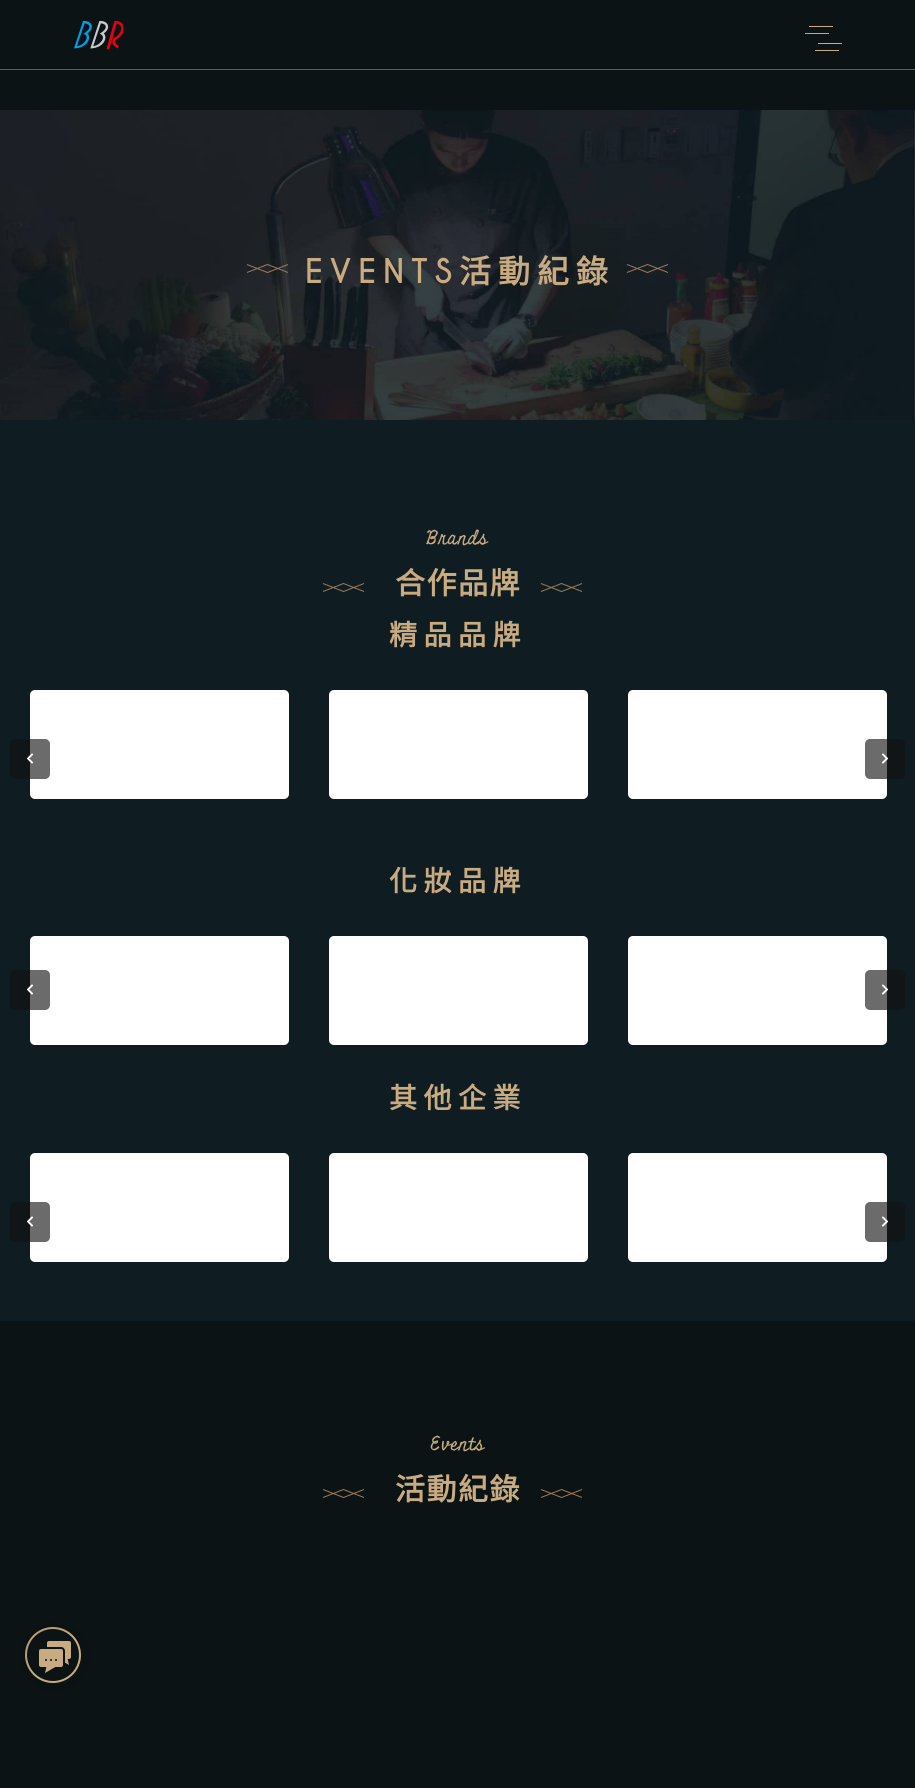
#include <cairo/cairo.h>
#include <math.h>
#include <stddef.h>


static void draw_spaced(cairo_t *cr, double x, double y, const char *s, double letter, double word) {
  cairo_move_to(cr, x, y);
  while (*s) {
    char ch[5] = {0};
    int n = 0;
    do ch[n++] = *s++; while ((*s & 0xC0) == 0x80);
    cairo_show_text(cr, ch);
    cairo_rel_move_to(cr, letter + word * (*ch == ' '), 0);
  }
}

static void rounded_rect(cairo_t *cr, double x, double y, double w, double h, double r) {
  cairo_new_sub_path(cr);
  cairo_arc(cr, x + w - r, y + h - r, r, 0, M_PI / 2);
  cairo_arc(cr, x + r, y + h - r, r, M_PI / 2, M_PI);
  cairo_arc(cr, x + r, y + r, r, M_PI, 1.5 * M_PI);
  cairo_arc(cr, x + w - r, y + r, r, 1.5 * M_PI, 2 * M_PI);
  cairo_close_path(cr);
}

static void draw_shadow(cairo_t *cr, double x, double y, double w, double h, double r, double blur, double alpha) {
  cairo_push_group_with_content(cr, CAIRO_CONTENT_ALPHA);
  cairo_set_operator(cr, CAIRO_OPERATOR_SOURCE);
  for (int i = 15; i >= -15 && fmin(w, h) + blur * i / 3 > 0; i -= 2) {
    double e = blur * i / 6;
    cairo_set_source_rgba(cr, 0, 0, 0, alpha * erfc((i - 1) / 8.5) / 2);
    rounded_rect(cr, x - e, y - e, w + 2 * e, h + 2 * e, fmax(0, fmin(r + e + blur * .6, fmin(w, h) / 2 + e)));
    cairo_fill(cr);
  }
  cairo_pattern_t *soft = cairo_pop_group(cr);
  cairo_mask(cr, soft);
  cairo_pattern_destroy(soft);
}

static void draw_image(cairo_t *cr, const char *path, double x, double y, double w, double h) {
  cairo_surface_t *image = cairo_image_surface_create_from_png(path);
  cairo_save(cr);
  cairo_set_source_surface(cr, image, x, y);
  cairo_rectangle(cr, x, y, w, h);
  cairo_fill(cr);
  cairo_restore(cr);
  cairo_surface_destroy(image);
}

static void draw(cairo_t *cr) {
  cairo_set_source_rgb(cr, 11 / 255.0, 19 / 255.0, 21 / 255.0);
  cairo_paint(cr);
  cairo_set_source_rgb(cr, 113 / 255.0, 91 / 255.0, 62 / 255.0);
  cairo_rectangle(cr, 0, 69, 915, 1);
  cairo_fill(cr);
  draw_image(cr, "images/1.png", 74, 20, 49, 29);
  cairo_set_source_rgb(cr, 201 / 255.0, 171 / 255.0, 129 / 255.0);
  cairo_rectangle(cr, 809, 26, 24, 1);
  cairo_fill(cr);
  cairo_rectangle(cr, 805, 33, 24, 1);
  cairo_fill(cr);
  cairo_rectangle(cr, 818, 43, 24, 1);
  cairo_fill(cr);
  cairo_rectangle(cr, 815, 50, 24, 1);
  cairo_fill(cr);
  draw_image(cr, "images/2.png", 0, 110, 915, 310);
  cairo_new_path(cr);
  cairo_move_to(cr, 288, 272.5);
  cairo_line_to(cr, 267.5, 264.5);
  cairo_line_to(cr, 247, 272.5);
  cairo_move_to(cr, 288, 264.5);
  cairo_line_to(cr, 267.5, 272.5);
  cairo_line_to(cr, 247, 264.5);
  cairo_set_source_rgb(cr, 156 / 255.0, 124 / 255.0, 87 / 255.0);
  cairo_set_line_width(cr, 1);
  cairo_stroke(cr);
  cairo_new_path(cr);
  cairo_move_to(cr, 668, 272.5);
  cairo_line_to(cr, 647.5, 264.5);
  cairo_line_to(cr, 627, 272.5);
  cairo_move_to(cr, 668, 264.5);
  cairo_line_to(cr, 647.5, 272.5);
  cairo_line_to(cr, 627, 264.5);
  cairo_stroke(cr);
  cairo_set_source_rgb(cr, 15 / 255.0, 29 / 255.0, 34 / 255.0);
  cairo_rectangle(cr, 0, 420, 915, 901);
  cairo_fill(cr);
  cairo_new_path(cr);
  cairo_move_to(cr, 364, 591.5);
  cairo_line_to(cr, 343.5, 583.5);
  cairo_line_to(cr, 323, 591.5);
  cairo_move_to(cr, 364, 583.5);
  cairo_line_to(cr, 343.5, 591.5);
  cairo_line_to(cr, 323, 583.5);
  cairo_set_source_rgb(cr, 156 / 255.0, 124 / 255.0, 87 / 255.0);
  cairo_stroke(cr);
  cairo_new_path(cr);
  cairo_move_to(cr, 582, 591.5);
  cairo_line_to(cr, 561.5, 583.5);
  cairo_line_to(cr, 541, 591.5);
  cairo_move_to(cr, 582, 583.5);
  cairo_line_to(cr, 561.5, 591.5);
  cairo_line_to(cr, 541, 583.5);
  cairo_stroke(cr);
  cairo_set_source_rgb(cr, 1, 1, 1);
  rounded_rect(cr, 30, 690, 259, 109, 5);
  cairo_fill(cr);
  rounded_rect(cr, 329, 690, 259, 109, 5);
  cairo_fill(cr);
  rounded_rect(cr, 628, 690, 259, 109, 5);
  cairo_fill(cr);
  cairo_set_source_rgba(cr, 17 / 255.0, 17 / 255.0, 17 / 255.0, 0.62);
  rounded_rect(cr, 10, 739, 40, 40, 5);
  cairo_fill(cr);
  draw_image(cr, "images/3.png", 26, 753, 8, 11);
  rounded_rect(cr, 865, 739, 40, 40, 5);
  cairo_fill(cr);
  draw_image(cr, "images/4.png", 881, 753, 8, 11);
  cairo_set_source_rgb(cr, 1, 1, 1);
  rounded_rect(cr, 30, 936, 259, 109, 5);
  cairo_fill(cr);
  rounded_rect(cr, 329, 936, 259, 109, 5);
  cairo_fill(cr);
  rounded_rect(cr, 628, 936, 259, 109, 5);
  cairo_fill(cr);
  cairo_set_source_rgba(cr, 17 / 255.0, 17 / 255.0, 17 / 255.0, 0.62);
  rounded_rect(cr, 10, 970, 40, 40, 5);
  cairo_fill(cr);
  draw_image(cr, "images/3.png", 26, 984, 8, 11);
  rounded_rect(cr, 865, 970, 40, 40, 5);
  cairo_fill(cr);
  draw_image(cr, "images/4.png", 881, 984, 8, 11);
  cairo_set_source_rgb(cr, 1, 1, 1);
  rounded_rect(cr, 30, 1153, 259, 109, 5);
  cairo_fill(cr);
  rounded_rect(cr, 329, 1153, 259, 109, 5);
  cairo_fill(cr);
  rounded_rect(cr, 628, 1153, 259, 109, 5);
  cairo_fill(cr);
  cairo_set_source_rgba(cr, 17 / 255.0, 17 / 255.0, 17 / 255.0, 0.62);
  rounded_rect(cr, 10, 1202, 40, 40, 5);
  cairo_fill(cr);
  draw_image(cr, "images/3.png", 26, 1216, 8, 11);
  rounded_rect(cr, 865, 1202, 40, 40, 5);
  cairo_fill(cr);
  draw_image(cr, "images/4.png", 881, 1216, 8, 11);
  cairo_new_path(cr);
  cairo_move_to(cr, 364, 1497.5);
  cairo_line_to(cr, 343.5, 1489.5);
  cairo_line_to(cr, 323, 1497.5);
  cairo_move_to(cr, 364, 1489.5);
  cairo_line_to(cr, 343.5, 1497.5);
  cairo_line_to(cr, 323, 1489.5);
  cairo_set_source_rgb(cr, 156 / 255.0, 124 / 255.0, 87 / 255.0);
  cairo_stroke(cr);
  cairo_new_path(cr);
  cairo_move_to(cr, 582, 1497.5);
  cairo_line_to(cr, 561.5, 1489.5);
  cairo_line_to(cr, 541, 1497.5);
  cairo_move_to(cr, 582, 1489.5);
  cairo_line_to(cr, 561.5, 1497.5);
  cairo_line_to(cr, 541, 1489.5);
  cairo_stroke(cr);
  cairo_arc(cr, 53, 1655, 27, 0, 2 * M_PI);
  cairo_set_source_rgb(cr, 201 / 255.0, 171 / 255.0, 129 / 255.0);
  cairo_set_line_width(cr, 2);
  cairo_stroke(cr);
  cairo_save(cr);
  cairo_set_fill_rule(cr, CAIRO_FILL_RULE_EVEN_ODD);
  cairo_new_path(cr);
  cairo_move_to(cr, 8, 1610);
  cairo_line_to(cr, 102, 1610);
  cairo_line_to(cr, 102, 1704);
  cairo_line_to(cr, 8, 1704);
  cairo_close_path(cr);
  cairo_move_to(cr, 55, 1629);
  cairo_curve_to(cr, 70.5, 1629, 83, 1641.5, 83, 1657);
  cairo_curve_to(cr, 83, 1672.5, 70.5, 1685, 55, 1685);
  cairo_curve_to(cr, 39.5, 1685, 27, 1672.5, 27, 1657);
  cairo_curve_to(cr, 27, 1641.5, 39.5, 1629, 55, 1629);
  cairo_close_path(cr);
  cairo_clip(cr);
  cairo_set_source_rgb(cr, 0, 0, 0);
  draw_shadow(cr, 27, 1629, 56, 56, 28, 6, 0.2);
  cairo_restore(cr);
  draw_image(cr, "images/5.png", 39, 1641, 32, 32);
  cairo_select_font_face(cr, "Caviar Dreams", CAIRO_FONT_SLANT_NORMAL, CAIRO_FONT_WEIGHT_BOLD);
  cairo_set_font_size(cr, 32);
  draw_spaced(cr, 305, 283, "EVENTS", 7, 0);
  cairo_select_font_face(cr, "Noto Sans CJK TC", CAIRO_FONT_SLANT_NORMAL, CAIRO_FONT_WEIGHT_BOLD);
  draw_spaced(cr, 459, 283, "活動紀錄", 7, 0);
  cairo_select_font_face(cr, "Miniver", CAIRO_FONT_SLANT_NORMAL, CAIRO_FONT_WEIGHT_NORMAL);
  cairo_set_font_size(cr, 19);
  draw_spaced(cr, 426, 544, "Brands", 0.75, 0);
  cairo_select_font_face(cr, "Noto Sans CJK TC", CAIRO_FONT_SLANT_NORMAL, CAIRO_FONT_WEIGHT_BOLD);
  cairo_set_font_size(cr, 30);
  draw_spaced(cr, 395, 594, "合作品牌", 1.5, 0);
  cairo_set_font_size(cr, 28);
  draw_spaced(cr, 389, 645, "精品品牌", 6.5, 0);
  draw_spaced(cr, 389, 891, "化妝品牌", 6.5, 0);
  draw_spaced(cr, 389, 1108, "其他企業", 6.5, 0);
  cairo_select_font_face(cr, "Miniver", CAIRO_FONT_SLANT_NORMAL, CAIRO_FONT_WEIGHT_NORMAL);
  cairo_set_font_size(cr, 19);
  draw_spaced(cr, 430, 1450, "Events", 0.75, 0);
  cairo_select_font_face(cr, "Noto Sans CJK TC", CAIRO_FONT_SLANT_NORMAL, CAIRO_FONT_WEIGHT_BOLD);
  cairo_set_font_size(cr, 30);
  draw_spaced(cr, 395, 1500, "活動紀錄", 1.5, 0);
}

int main(void) {
  cairo_surface_t *surface = cairo_image_surface_create(CAIRO_FORMAT_RGB24, 915, 1788);
  cairo_t *cr = cairo_create(surface);
  cairo_font_options_t *options = cairo_font_options_create();
  cairo_font_options_set_hint_metrics(options, CAIRO_HINT_METRICS_OFF);
  cairo_font_options_set_hint_style(options, CAIRO_HINT_STYLE_NONE);
  cairo_set_font_options(cr, options);
  cairo_set_miter_limit(cr, 4);
  draw(cr);
  cairo_surface_write_to_png(surface, "out.png");
  cairo_font_options_destroy(options);
  cairo_destroy(cr);
  cairo_surface_destroy(surface);
  return 0;
}
